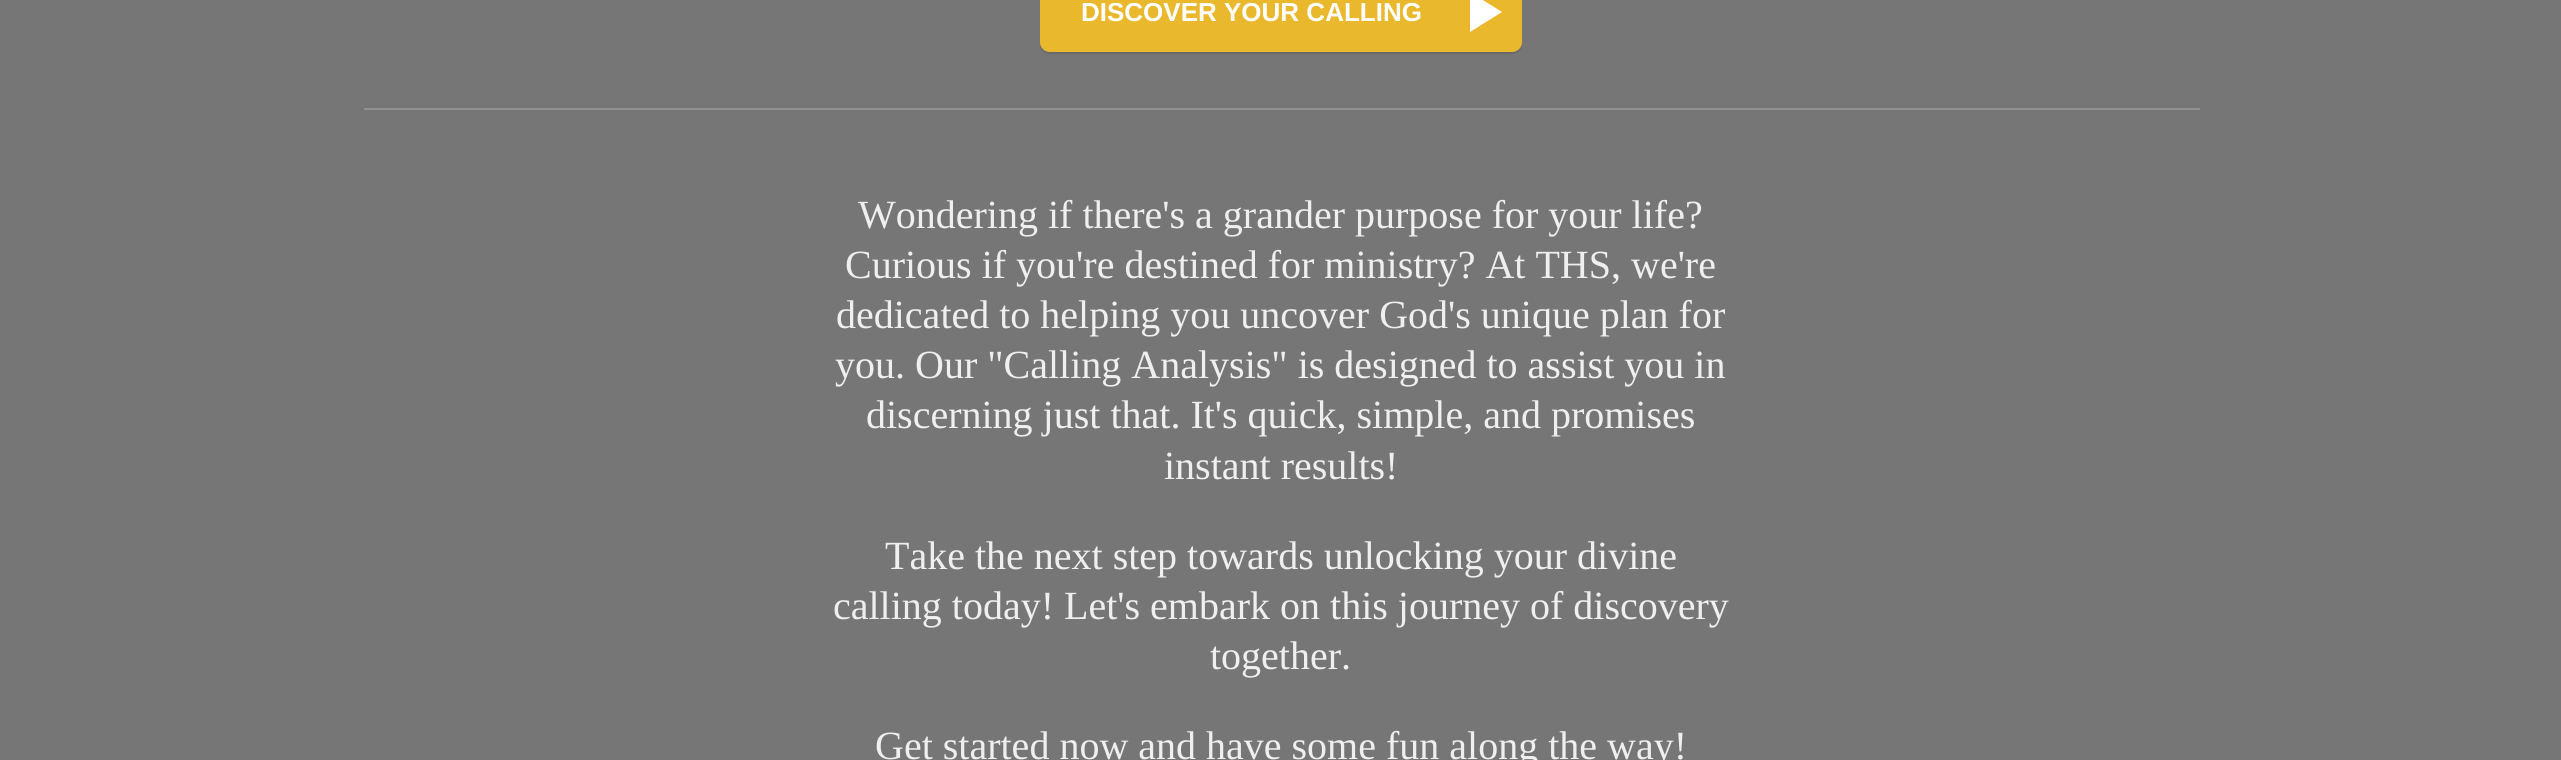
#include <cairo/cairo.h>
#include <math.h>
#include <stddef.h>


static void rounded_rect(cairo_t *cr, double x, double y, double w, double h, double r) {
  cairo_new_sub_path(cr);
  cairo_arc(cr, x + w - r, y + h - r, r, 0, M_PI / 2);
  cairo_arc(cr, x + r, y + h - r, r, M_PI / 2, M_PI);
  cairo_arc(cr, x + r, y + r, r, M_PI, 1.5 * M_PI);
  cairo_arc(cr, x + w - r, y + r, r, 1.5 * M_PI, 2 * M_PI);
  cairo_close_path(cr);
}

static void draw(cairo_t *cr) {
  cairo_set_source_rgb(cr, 118 / 255.0, 118 / 255.0, 118 / 255.0);
  cairo_paint(cr);
  cairo_set_source_rgb(cr, 145 / 255.0, 145 / 255.0, 145 / 255.0);
  cairo_rectangle(cr, 364, 108, 1836, 2);
  cairo_fill(cr);
  cairo_set_source_rgb(cr, 106 / 255.0, 106 / 255.0, 106 / 255.0);
  cairo_new_path(cr);
  cairo_move_to(cr, 1040, 42);
  cairo_line_to(cr, 1040, 44);
  cairo_curve_to(cr, 1040, 50, 1044, 54, 1050, 54);
  cairo_line_to(cr, 1512, 54);
  cairo_curve_to(cr, 1518, 54, 1522, 50, 1522, 44);
  cairo_line_to(cr, 1522, 42);
  cairo_curve_to(cr, 1522, 48, 1518, 52, 1512, 52);
  cairo_line_to(cr, 1050, 52);
  cairo_curve_to(cr, 1044, 52, 1040, 48, 1040, 42);
  cairo_close_path(cr);
  cairo_fill(cr);
  cairo_set_source_rgb(cr, 234 / 255.0, 184 / 255.0, 45 / 255.0);
  rounded_rect(cr, 1040, -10, 482, 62, 10);
  cairo_fill(cr);
  cairo_set_source_rgb(cr, 1, 1, 1);
  cairo_new_path(cr);
  cairo_move_to(cr, 1470, 32);
  cairo_line_to(cr, 1470, -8);
  cairo_line_to(cr, 1502, 12);
  cairo_close_path(cr);
  cairo_fill(cr);
  cairo_select_font_face(cr, "Liberation Sans", CAIRO_FONT_SLANT_NORMAL, CAIRO_FONT_WEIGHT_BOLD);
  cairo_set_font_size(cr, 26);
  cairo_move_to(cr, 1081, 21);
  cairo_show_text(cr, "DISCOVER YOUR CALLING");
  cairo_select_font_face(cr, "Liberation Serif", CAIRO_FONT_SLANT_NORMAL, CAIRO_FONT_WEIGHT_NORMAL);
  cairo_set_font_size(cr, 40);
  cairo_set_source_rgb(cr, 239 / 255.0, 239 / 255.0, 239 / 255.0);
  cairo_move_to(cr, 858, 228);
  cairo_show_text(cr, "Wondering if there's a grander purpose for your life?");
  cairo_move_to(cr, 845, 278);
  cairo_show_text(cr, "Curious if you're destined for ministry? At THS, we're");
  cairo_move_to(cr, 836, 328);
  cairo_show_text(cr, "dedicated to helping you uncover God's unique plan for");
  cairo_move_to(cr, 835, 378);
  cairo_show_text(cr, "you. Our \"Calling Analysis\" is designed to assist you in");
  cairo_move_to(cr, 866, 428);
  cairo_show_text(cr, "discerning just that. It's quick, simple, and promises");
  cairo_move_to(cr, 1164, 479);
  cairo_show_text(cr, "instant results!");
  cairo_move_to(cr, 885, 569);
  cairo_show_text(cr, "Take the next step towards unlocking your divine");
  cairo_move_to(cr, 833, 619);
  cairo_show_text(cr, "calling today! Let's embark on this journey of discovery");
  cairo_move_to(cr, 1210, 669);
  cairo_show_text(cr, "together.");
  cairo_move_to(cr, 875, 759);
  cairo_show_text(cr, "Get started now and have some fun along the way!");
}

int main(void) {
  cairo_surface_t *surface = cairo_image_surface_create(CAIRO_FORMAT_RGB24, 2561, 760);
  cairo_t *cr = cairo_create(surface);
  cairo_font_options_t *options = cairo_font_options_create();
  cairo_font_options_set_hint_metrics(options, CAIRO_HINT_METRICS_OFF);
  cairo_font_options_set_hint_style(options, CAIRO_HINT_STYLE_NONE);
  cairo_set_font_options(cr, options);
  cairo_set_miter_limit(cr, 4);
  draw(cr);
  cairo_surface_write_to_png(surface, "out.png");
  cairo_font_options_destroy(options);
  cairo_destroy(cr);
  cairo_surface_destroy(surface);
  return 0;
}
